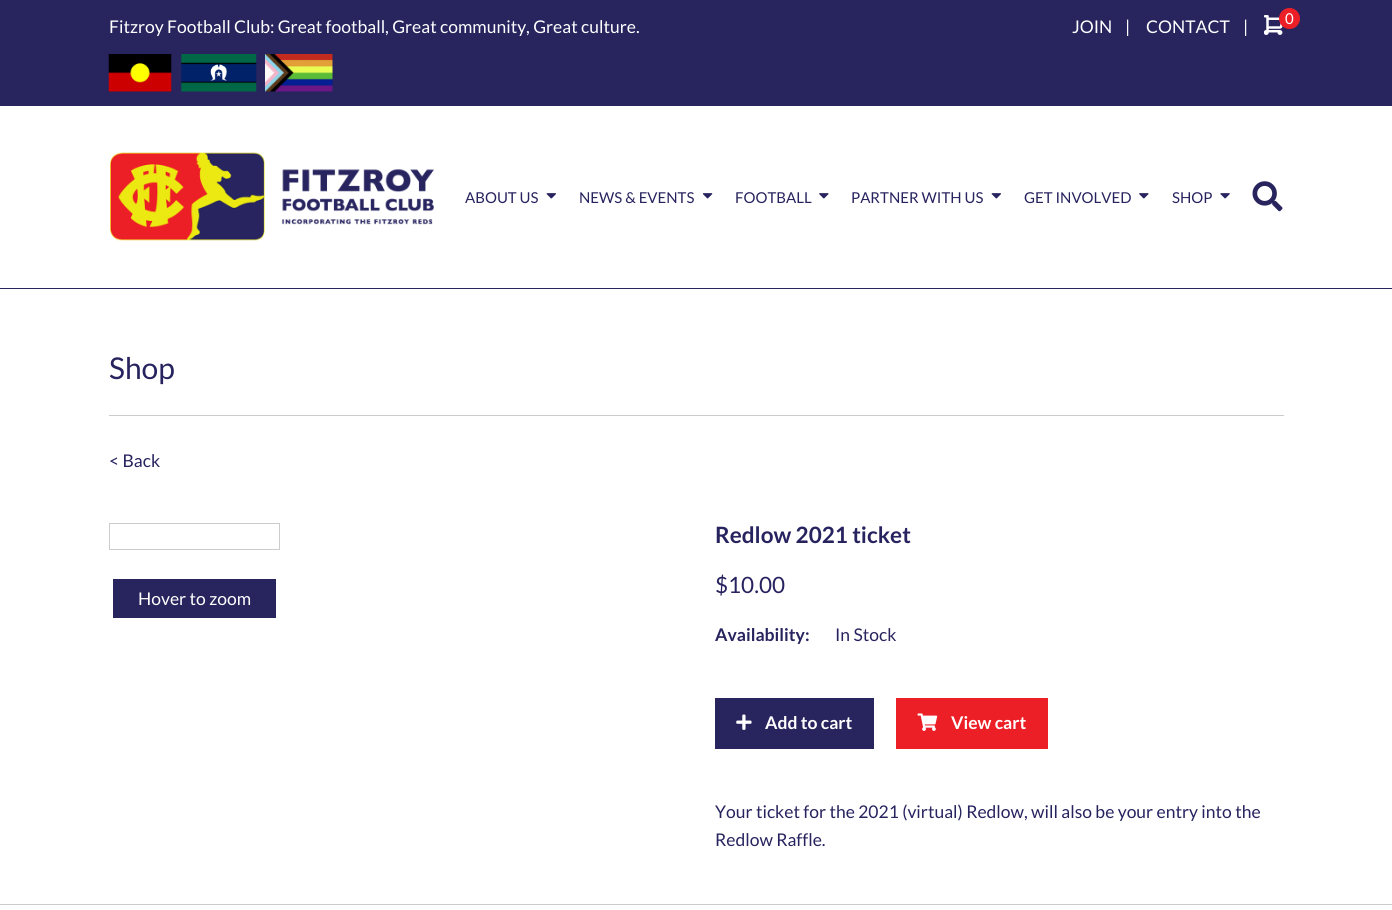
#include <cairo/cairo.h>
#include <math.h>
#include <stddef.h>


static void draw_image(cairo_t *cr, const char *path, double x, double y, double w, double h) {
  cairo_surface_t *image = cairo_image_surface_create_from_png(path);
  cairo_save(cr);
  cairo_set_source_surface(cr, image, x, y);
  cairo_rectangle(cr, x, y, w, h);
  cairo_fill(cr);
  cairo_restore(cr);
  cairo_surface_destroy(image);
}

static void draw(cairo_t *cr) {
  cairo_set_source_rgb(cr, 1, 1, 1);
  cairo_paint(cr);
  cairo_set_source_rgb(cr, 39 / 255.0, 36 / 255.0, 94 / 255.0);
  cairo_rectangle(cr, 0, 0, 1392, 106);
  cairo_fill(cr);
  draw_image(cr, "images/1.png", 1264, 15, 19, 20);
  cairo_set_source_rgb(cr, 236 / 255.0, 31 / 255.0, 39 / 255.0);
  cairo_arc(cr, 1289.5, 18.5, 10.5, 0, 2 * M_PI);
  cairo_fill(cr);
  draw_image(cr, "images/2.png", 108, 54, 64, 38);
  draw_image(cr, "images/3.png", 181, 54, 76, 38);
  draw_image(cr, "images/4.png", 265, 54, 68, 38);
  cairo_set_source_rgb(cr, 39 / 255.0, 36 / 255.0, 94 / 255.0);
  cairo_rectangle(cr, 0, 288, 1392, 1);
  cairo_fill(cr);
  draw_image(cr, "images/5.png", 110, 152, 324, 89);
  draw_image(cr, "images/6.png", 546, 193, 10, 6);
  draw_image(cr, "images/7.png", 702, 193, 11, 6);
  draw_image(cr, "images/8.png", 819, 193, 10, 6);
  draw_image(cr, "images/6.png", 991, 193, 10, 6);
  draw_image(cr, "images/8.png", 1139, 193, 10, 6);
  draw_image(cr, "images/9.png", 1220, 193, 10, 6);
  draw_image(cr, "images/10.png", 1252, 181, 31, 31);
  cairo_set_source_rgb(cr, 204 / 255.0, 204 / 255.0, 204 / 255.0);
  cairo_rectangle(cr, 109, 415, 1175, 1);
  cairo_fill(cr);
  cairo_rectangle(cr, 109.5, 523.5, 170, 26);
  cairo_set_line_width(cr, 1);
  cairo_stroke(cr);
  cairo_set_source_rgb(cr, 39 / 255.0, 36 / 255.0, 94 / 255.0);
  cairo_rectangle(cr, 113, 579, 163, 39);
  cairo_fill(cr);
  cairo_rectangle(cr, 715, 698, 159, 51);
  cairo_fill(cr);
  draw_image(cr, "images/11.png", 736, 714, 16, 16);
  cairo_set_source_rgb(cr, 236 / 255.0, 31 / 255.0, 38 / 255.0);
  cairo_rectangle(cr, 896, 698, 152, 51);
  cairo_fill(cr);
  draw_image(cr, "images/12.png", 917, 713, 21, 18);
  cairo_set_source_rgb(cr, 204 / 255.0, 204 / 255.0, 204 / 255.0);
  cairo_rectangle(cr, 0, 904, 1392, 1);
  cairo_fill(cr);
  cairo_select_font_face(cr, "Lato", CAIRO_FONT_SLANT_NORMAL, CAIRO_FONT_WEIGHT_NORMAL);
  cairo_set_font_size(cr, 17.5);
  cairo_set_source_rgb(cr, 1, 1, 1);
  cairo_move_to(cr, 109, 33);
  cairo_show_text(cr, "Fitzroy Football Club: Great football, Great community, Great culture.");
  cairo_move_to(cr, 1072, 33);
  cairo_show_text(cr, "JOIN");
  cairo_move_to(cr, 1125, 33);
  cairo_show_text(cr, "|");
  cairo_move_to(cr, 1146, 33);
  cairo_show_text(cr, "CONTACT");
  cairo_move_to(cr, 1243, 33);
  cairo_show_text(cr, "|");
  cairo_set_font_size(cr, 15);
  cairo_move_to(cr, 1285, 24);
  cairo_show_text(cr, "0");
  cairo_set_source_rgb(cr, 39 / 255.0, 35 / 255.0, 95 / 255.0);
  cairo_move_to(cr, 465, 203);
  cairo_show_text(cr, "ABOUT US");
  cairo_move_to(cr, 579, 203);
  cairo_show_text(cr, "NEWS & EVENTS");
  cairo_move_to(cr, 735, 203);
  cairo_show_text(cr, "FOOTBALL");
  cairo_move_to(cr, 851, 203);
  cairo_show_text(cr, "PARTNER WITH US");
  cairo_move_to(cr, 1024, 203);
  cairo_show_text(cr, "GET INVOLVED");
  cairo_move_to(cr, 1172, 203);
  cairo_show_text(cr, "SHOP");
  cairo_set_font_size(cr, 30);
  cairo_move_to(cr, 109, 379);
  cairo_show_text(cr, "Shop");
  cairo_set_font_size(cr, 17.5);
  cairo_move_to(cr, 109, 467);
  cairo_show_text(cr, "< Back");
  cairo_set_source_rgb(cr, 1, 1, 1);
  cairo_move_to(cr, 138, 605);
  cairo_show_text(cr, "Hover to zoom");
  cairo_select_font_face(cr, "Lato", CAIRO_FONT_SLANT_NORMAL, CAIRO_FONT_WEIGHT_BOLD);
  cairo_set_font_size(cr, 22.5);
  cairo_set_source_rgb(cr, 39 / 255.0, 35 / 255.0, 95 / 255.0);
  cairo_move_to(cr, 715, 543);
  cairo_show_text(cr, "Redlow 2021 ticket");
  cairo_select_font_face(cr, "Lato", CAIRO_FONT_SLANT_NORMAL, CAIRO_FONT_WEIGHT_NORMAL);
  cairo_move_to(cr, 715, 593);
  cairo_show_text(cr, "$10.00");
  cairo_select_font_face(cr, "Lato", CAIRO_FONT_SLANT_NORMAL, CAIRO_FONT_WEIGHT_BOLD);
  cairo_set_font_size(cr, 17.5);
  cairo_move_to(cr, 715, 641);
  cairo_show_text(cr, "Availability:");
  cairo_select_font_face(cr, "Lato", CAIRO_FONT_SLANT_NORMAL, CAIRO_FONT_WEIGHT_NORMAL);
  cairo_move_to(cr, 835, 641);
  cairo_show_text(cr, "In Stock");
  cairo_select_font_face(cr, "Lato", CAIRO_FONT_SLANT_NORMAL, CAIRO_FONT_WEIGHT_BOLD);
  cairo_set_source_rgb(cr, 1, 1, 1);
  cairo_move_to(cr, 765, 729);
  cairo_show_text(cr, "Add to cart");
  cairo_move_to(cr, 951, 729);
  cairo_show_text(cr, "View cart");
  cairo_select_font_face(cr, "Lato", CAIRO_FONT_SLANT_NORMAL, CAIRO_FONT_WEIGHT_NORMAL);
  cairo_set_source_rgb(cr, 39 / 255.0, 35 / 255.0, 95 / 255.0);
  cairo_move_to(cr, 715, 818);
  cairo_show_text(cr, "Your ticket for the 2021 (virtual) Redlow, will also be your entry into the");
  cairo_move_to(cr, 715, 846);
  cairo_show_text(cr, "Redlow Raffle.");
}

int main(void) {
  cairo_surface_t *surface = cairo_image_surface_create(CAIRO_FORMAT_RGB24, 1392, 910);
  cairo_t *cr = cairo_create(surface);
  cairo_font_options_t *options = cairo_font_options_create();
  cairo_font_options_set_hint_metrics(options, CAIRO_HINT_METRICS_OFF);
  cairo_font_options_set_hint_style(options, CAIRO_HINT_STYLE_NONE);
  cairo_set_font_options(cr, options);
  cairo_set_miter_limit(cr, 4);
  draw(cr);
  cairo_surface_write_to_png(surface, "out.png");
  cairo_font_options_destroy(options);
  cairo_destroy(cr);
  cairo_surface_destroy(surface);
  return 0;
}
